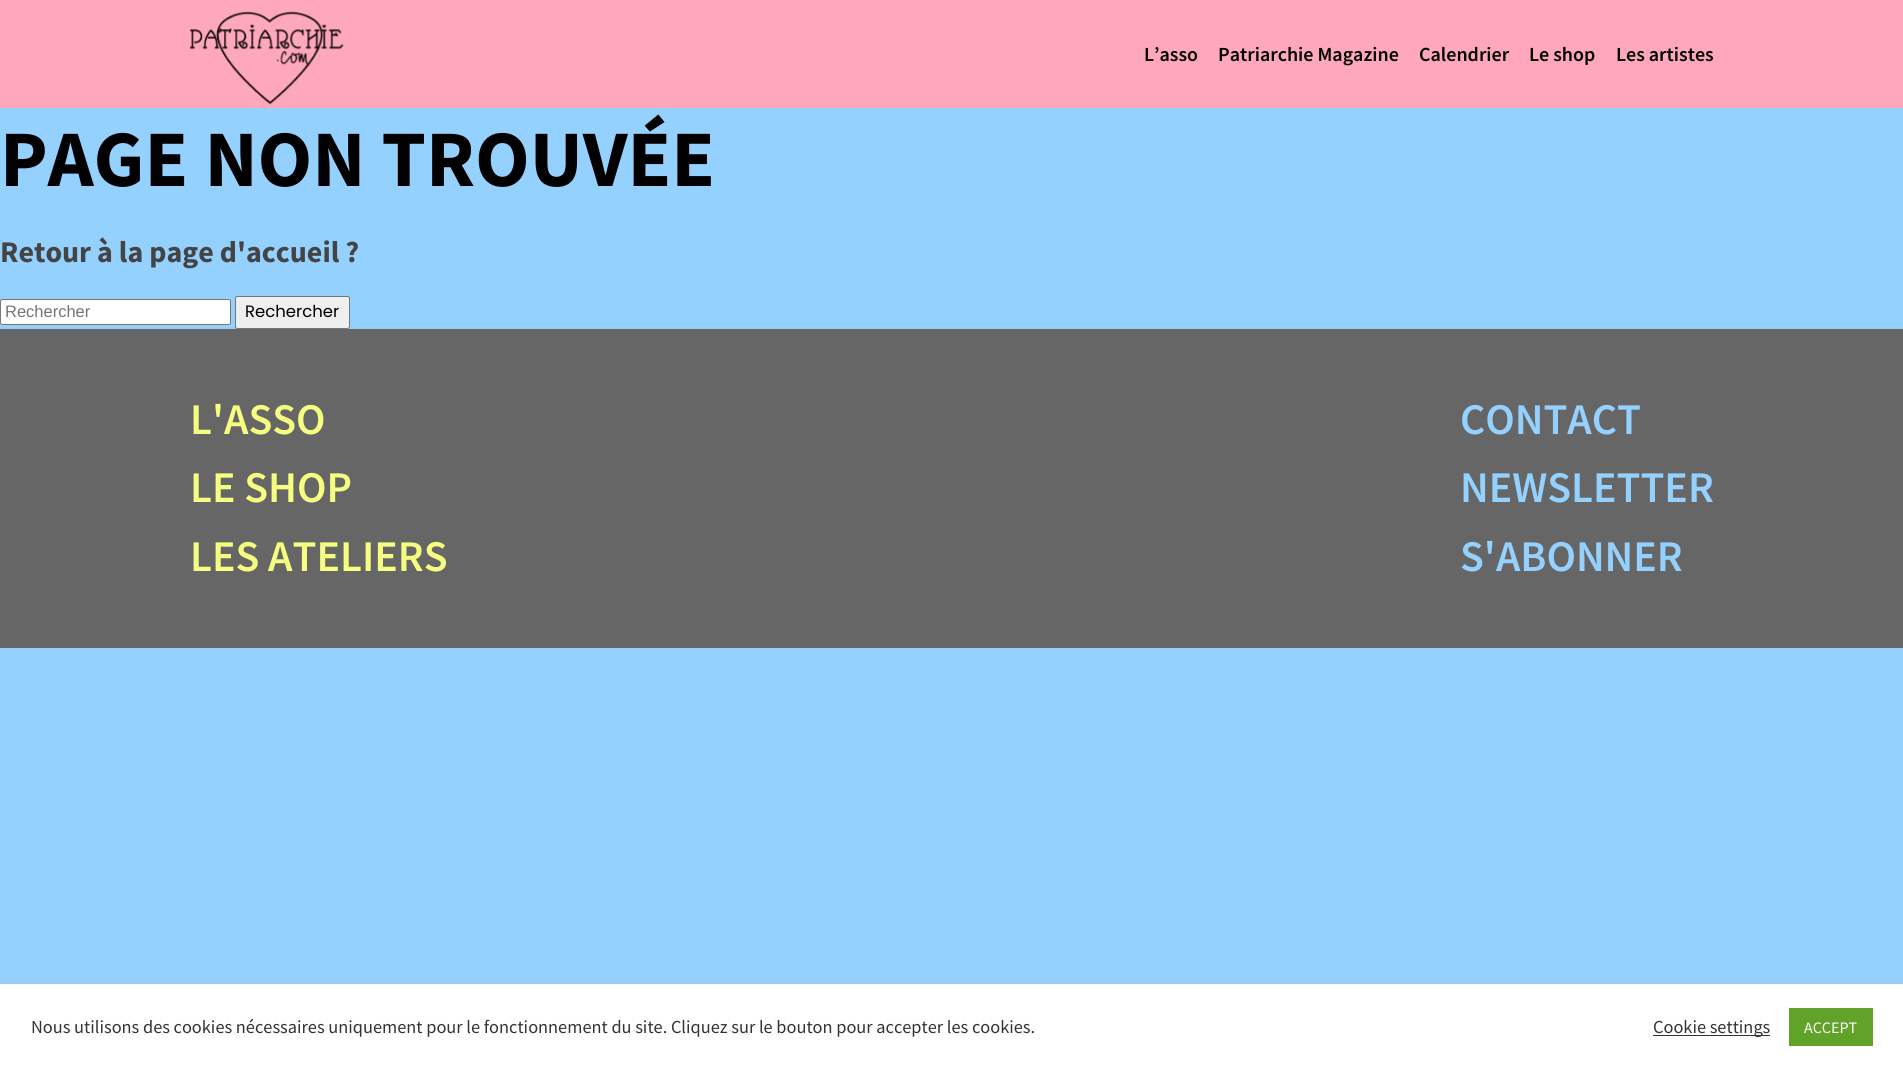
#include <cairo/cairo.h>
#include <math.h>
#include <stddef.h>


static void rounded_rect(cairo_t *cr, double x, double y, double w, double h, double r) {
  cairo_new_sub_path(cr);
  cairo_arc(cr, x + w - r, y + h - r, r, 0, M_PI / 2);
  cairo_arc(cr, x + r, y + h - r, r, M_PI / 2, M_PI);
  cairo_arc(cr, x + r, y + r, r, M_PI, 1.5 * M_PI);
  cairo_arc(cr, x + w - r, y + r, r, 1.5 * M_PI, 2 * M_PI);
  cairo_close_path(cr);
}

static void draw_shadow(cairo_t *cr, double x, double y, double w, double h, double r, double blur, double alpha) {
  cairo_push_group_with_content(cr, CAIRO_CONTENT_ALPHA);
  cairo_set_operator(cr, CAIRO_OPERATOR_SOURCE);
  for (int i = 15; i >= -15 && fmin(w, h) + blur * i / 3 > 0; i -= 2) {
    double e = blur * i / 6;
    cairo_set_source_rgba(cr, 0, 0, 0, alpha * erfc((i - 1) / 8.5) / 2);
    rounded_rect(cr, x - e, y - e, w + 2 * e, h + 2 * e, fmax(0, fmin(r + e + blur * .6, fmin(w, h) / 2 + e)));
    cairo_fill(cr);
  }
  cairo_pattern_t *soft = cairo_pop_group(cr);
  cairo_mask(cr, soft);
  cairo_pattern_destroy(soft);
}

static void draw_image(cairo_t *cr, const char *path, double x, double y, double w, double h) {
  cairo_surface_t *image = cairo_image_surface_create_from_png(path);
  cairo_save(cr);
  cairo_set_source_surface(cr, image, x, y);
  cairo_rectangle(cr, x, y, w, h);
  cairo_fill(cr);
  cairo_restore(cr);
  cairo_surface_destroy(image);
}

static void draw(cairo_t *cr) {
  cairo_set_source_rgb(cr, 148 / 255.0, 209 / 255.0, 1);
  cairo_paint(cr);
  cairo_set_source_rgb(cr, 1, 168 / 255.0, 187 / 255.0);
  cairo_rectangle(cr, 0, 0, 1903, 108);
  cairo_fill(cr);
  draw_image(cr, "images/1.png", 190, 11, 154, 94);
  cairo_set_source_rgb(cr, 1, 1, 1);
  rounded_rect(cr, 0.5, 299.5, 230, 25, 2);
  cairo_fill_preserve(cr);
  cairo_set_source_rgb(cr, 118 / 255.0, 118 / 255.0, 118 / 255.0);
  cairo_set_line_width(cr, 1);
  cairo_stroke(cr);
  cairo_set_source_rgb(cr, 239 / 255.0, 239 / 255.0, 239 / 255.0);
  rounded_rect(cr, 235.5, 296.5, 114, 32, 2);
  cairo_fill_preserve(cr);
  cairo_set_source_rgb(cr, 118 / 255.0, 118 / 255.0, 118 / 255.0);
  cairo_stroke(cr);
  cairo_set_source_rgb(cr, 102 / 255.0, 102 / 255.0, 102 / 255.0);
  cairo_rectangle(cr, 0, 329, 1903, 319);
  cairo_fill(cr);
  cairo_set_source_rgb(cr, 172 / 255.0, 171 / 255.0, 171 / 255.0);
  draw_shadow(cr, 0, 983, 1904, 86, 0, 6, 0.3);
  cairo_set_source_rgb(cr, 1, 1, 1);
  cairo_rectangle(cr, 0, 984, 1903, 85);
  cairo_fill(cr);
  cairo_set_source_rgb(cr, 51 / 255.0, 51 / 255.0, 51 / 255.0);
  cairo_rectangle(cr, 1653, 1035, 117, 1);
  cairo_fill(cr);
  cairo_set_source_rgb(cr, 97 / 255.0, 162 / 255.0, 41 / 255.0);
  cairo_rectangle(cr, 1789, 1008, 84, 38);
  cairo_fill(cr);
  cairo_select_font_face(cr, "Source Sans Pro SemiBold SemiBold", CAIRO_FONT_SLANT_NORMAL, CAIRO_FONT_WEIGHT_NORMAL);
  cairo_set_font_size(cr, 20);
  cairo_set_source_rgb(cr, 0, 0, 0);
  cairo_move_to(cr, 1144, 61);
  cairo_show_text(cr, "L’asso");
  cairo_move_to(cr, 1218, 61);
  cairo_show_text(cr, "Patriarchie Magazine");
  cairo_move_to(cr, 1419, 61);
  cairo_show_text(cr, "Calendrier");
  cairo_move_to(cr, 1529, 61);
  cairo_show_text(cr, "Le shop");
  cairo_move_to(cr, 1616, 61);
  cairo_show_text(cr, "Les artistes");
  cairo_select_font_face(cr, "Source Sans Pro", CAIRO_FONT_SLANT_NORMAL, CAIRO_FONT_WEIGHT_BOLD);
  cairo_set_font_size(cr, 80);
  cairo_move_to(cr, 0, 186);
  cairo_show_text(cr, "PAGE NON TROUVÉE");
  cairo_set_font_size(cr, 30);
  cairo_set_source_rgb(cr, 68 / 255.0, 68 / 255.0, 68 / 255.0);
  cairo_move_to(cr, 0, 262);
  cairo_show_text(cr, "Retour à la page d'accueil ?");
  cairo_select_font_face(cr, "Liberation Sans", CAIRO_FONT_SLANT_NORMAL, CAIRO_FONT_WEIGHT_NORMAL);
  cairo_set_font_size(cr, 16.5);
  cairo_set_source_rgb(cr, 117 / 255.0, 117 / 255.0, 117 / 255.0);
  cairo_move_to(cr, 5, 317);
  cairo_show_text(cr, "Rechercher");
  cairo_select_font_face(cr, "Poppins", CAIRO_FONT_SLANT_NORMAL, CAIRO_FONT_WEIGHT_NORMAL);
  cairo_set_source_rgb(cr, 0, 0, 0);
  cairo_move_to(cr, 245, 317);
  cairo_show_text(cr, "Rechercher");
  cairo_select_font_face(cr, "Source Sans Pro SemiBold SemiBold", CAIRO_FONT_SLANT_NORMAL, CAIRO_FONT_WEIGHT_NORMAL);
  cairo_set_font_size(cr, 43.75);
  cairo_set_source_rgb(cr, 247 / 255.0, 1, 129 / 255.0);
  cairo_move_to(cr, 190, 434);
  cairo_show_text(cr, "L'ASSO");
  cairo_move_to(cr, 190, 502);
  cairo_show_text(cr, "LE SHOP");
  cairo_move_to(cr, 190, 571);
  cairo_show_text(cr, "LES ATELIERS");
  cairo_set_source_rgb(cr, 148 / 255.0, 209 / 255.0, 1);
  cairo_move_to(cr, 1460, 434);
  cairo_show_text(cr, "CONTACT");
  cairo_move_to(cr, 1460, 502);
  cairo_show_text(cr, "NEWSLETTER");
  cairo_move_to(cr, 1460, 571);
  cairo_show_text(cr, "S'ABONNER");
  cairo_select_font_face(cr, "Source Sans Pro", CAIRO_FONT_SLANT_NORMAL, CAIRO_FONT_WEIGHT_NORMAL);
  cairo_set_font_size(cr, 18.33);
  cairo_set_source_rgb(cr, 51 / 255.0, 51 / 255.0, 51 / 255.0);
  cairo_move_to(cr, 31, 1033);
  cairo_show_text(cr, "Nous utilisons des cookies nécessaires uniquement pour le fonctionnement du site. Cliquez sur le bouton pour accepter les cookies.");
  cairo_move_to(cr, 1653, 1033);
  cairo_show_text(cr, "Cookie settings");
  cairo_set_font_size(cr, 16);
  cairo_set_source_rgb(cr, 1, 1, 1);
  cairo_move_to(cr, 1804, 1033);
  cairo_show_text(cr, "ACCEPT");
}

int main(void) {
  cairo_surface_t *surface = cairo_image_surface_create(CAIRO_FORMAT_RGB24, 1903, 1069);
  cairo_t *cr = cairo_create(surface);
  cairo_font_options_t *options = cairo_font_options_create();
  cairo_font_options_set_hint_metrics(options, CAIRO_HINT_METRICS_OFF);
  cairo_font_options_set_hint_style(options, CAIRO_HINT_STYLE_NONE);
  cairo_set_font_options(cr, options);
  cairo_set_miter_limit(cr, 4);
  draw(cr);
  cairo_surface_write_to_png(surface, "out.png");
  cairo_font_options_destroy(options);
  cairo_destroy(cr);
  cairo_surface_destroy(surface);
  return 0;
}
